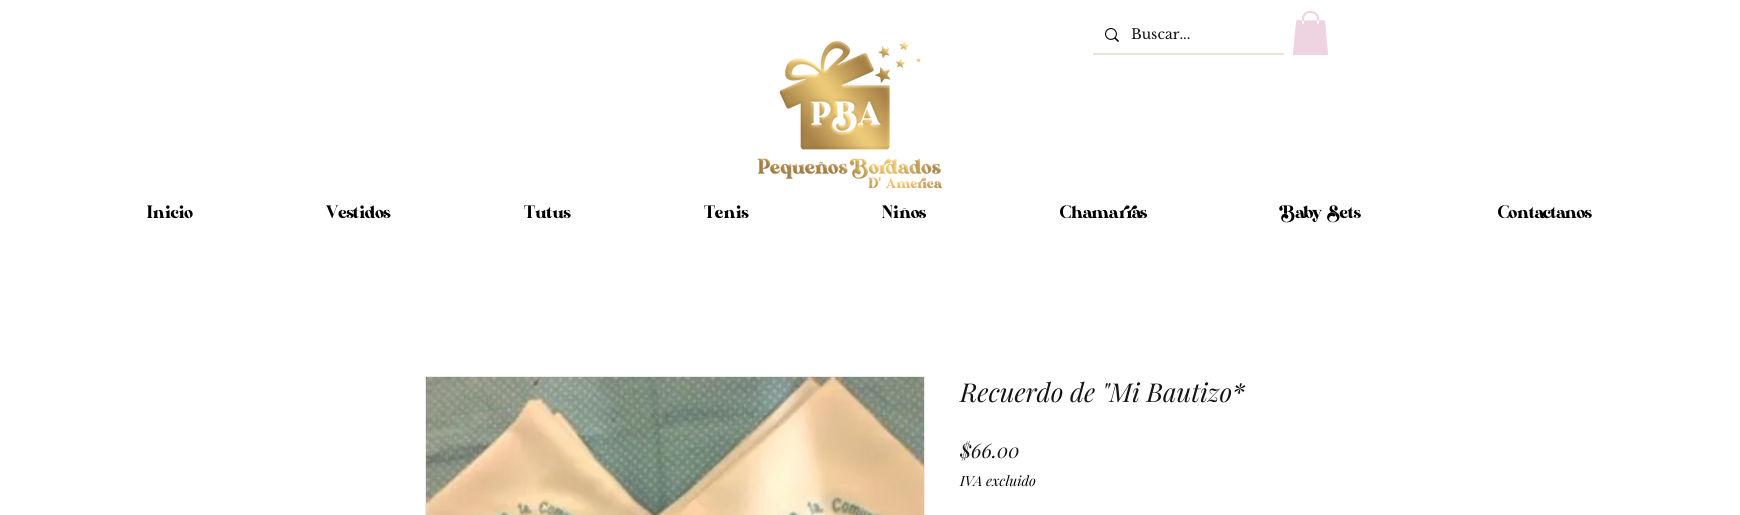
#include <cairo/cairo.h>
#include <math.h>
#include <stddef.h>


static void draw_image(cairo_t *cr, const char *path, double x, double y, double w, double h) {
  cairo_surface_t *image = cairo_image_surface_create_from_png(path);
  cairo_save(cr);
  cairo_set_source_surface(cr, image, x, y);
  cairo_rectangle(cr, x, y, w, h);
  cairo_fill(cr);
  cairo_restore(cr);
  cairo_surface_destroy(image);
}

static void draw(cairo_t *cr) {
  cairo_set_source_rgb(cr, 1, 1, 1);
  cairo_paint(cr);
  cairo_set_source_rgb(cr, 235 / 255.0, 229 / 255.0, 214 / 255.0);
  cairo_rectangle(cr, 1093, 53, 191, 2);
  cairo_fill(cr);
  draw_image(cr, "images/1.png", 1105, 28, 14, 14);
  draw_image(cr, "images/2.png", 1293, 11, 35, 45);
  draw_image(cr, "images/3.png", 757, 40, 186, 149);
  draw_image(cr, "images/4.png", 147, 205, 46, 14);
  draw_image(cr, "images/5.png", 326, 205, 65, 14);
  draw_image(cr, "images/6.png", 524, 205, 47, 14);
  draw_image(cr, "images/7.png", 704, 205, 45, 14);
  draw_image(cr, "images/8.png", 882, 205, 45, 14);
  draw_image(cr, "images/9.png", 1060, 205, 88, 14);
  draw_image(cr, "images/10.png", 1279, 205, 82, 18);
  draw_image(cr, "images/11.png", 1498, 205, 94, 14);
  cairo_rectangle(cr, 425.5, 376.5, 499, 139);
  cairo_set_source_rgb(cr, 235 / 255.0, 235 / 255.0, 235 / 255.0);
  cairo_set_line_width(cr, 1);
  cairo_stroke(cr);
  draw_image(cr, "images/12.png", 426, 377, 498, 138);
  cairo_select_font_face(cr, "Libre Baskerville", CAIRO_FONT_SLANT_NORMAL, CAIRO_FONT_WEIGHT_NORMAL);
  cairo_set_font_size(cr, 14);
  cairo_set_source_rgb(cr, 21 / 255.0, 21 / 255.0, 21 / 255.0);
  cairo_move_to(cr, 1131, 39);
  cairo_show_text(cr, "Buscar...");
  cairo_select_font_face(cr, "Playfair Display", CAIRO_FONT_SLANT_ITALIC, CAIRO_FONT_WEIGHT_NORMAL);
  cairo_set_font_size(cr, 26);
  cairo_move_to(cr, 960, 402);
  cairo_show_text(cr, "Recuerdo de \"Mi Bautizo*");
  cairo_set_font_size(cr, 20);
  cairo_move_to(cr, 960, 458);
  cairo_show_text(cr, "$66.00");
  cairo_set_font_size(cr, 14);
  cairo_set_source_rgb(cr, 0, 0, 0);
  cairo_move_to(cr, 960, 486);
  cairo_show_text(cr, "IVA excluido");
}

int main(void) {
  cairo_surface_t *surface = cairo_image_surface_create(CAIRO_FORMAT_RGB24, 1740, 515);
  cairo_t *cr = cairo_create(surface);
  cairo_font_options_t *options = cairo_font_options_create();
  cairo_font_options_set_hint_metrics(options, CAIRO_HINT_METRICS_OFF);
  cairo_font_options_set_hint_style(options, CAIRO_HINT_STYLE_NONE);
  cairo_set_font_options(cr, options);
  cairo_set_miter_limit(cr, 4);
  draw(cr);
  cairo_surface_write_to_png(surface, "out.png");
  cairo_font_options_destroy(options);
  cairo_destroy(cr);
  cairo_surface_destroy(surface);
  return 0;
}
